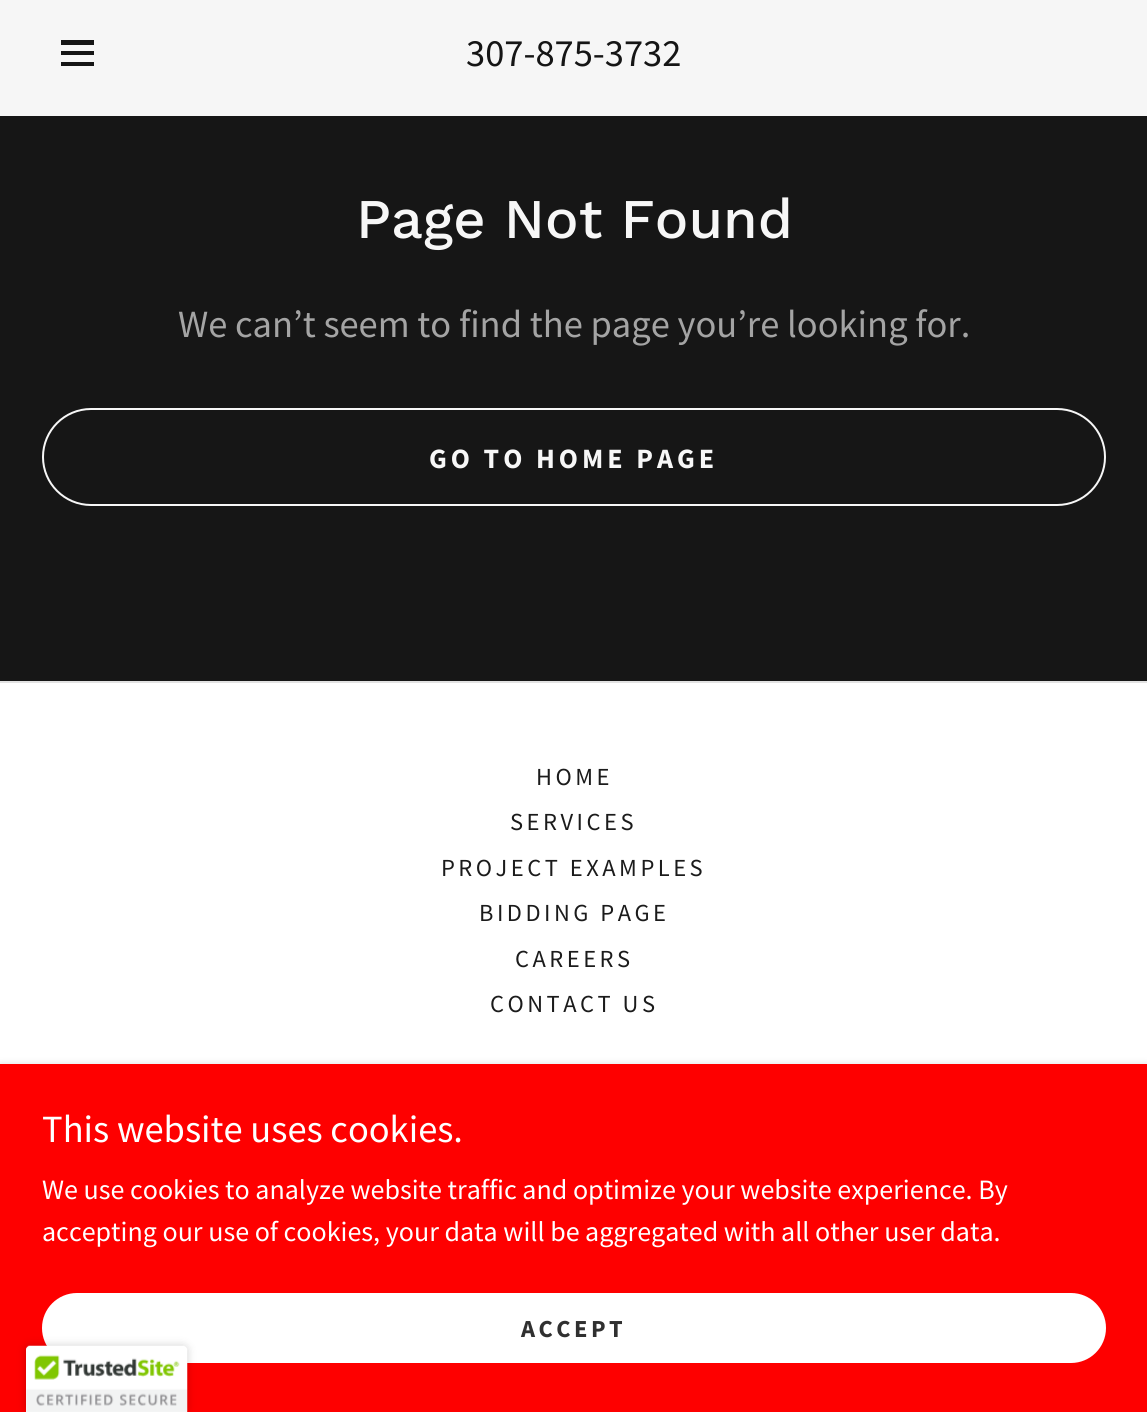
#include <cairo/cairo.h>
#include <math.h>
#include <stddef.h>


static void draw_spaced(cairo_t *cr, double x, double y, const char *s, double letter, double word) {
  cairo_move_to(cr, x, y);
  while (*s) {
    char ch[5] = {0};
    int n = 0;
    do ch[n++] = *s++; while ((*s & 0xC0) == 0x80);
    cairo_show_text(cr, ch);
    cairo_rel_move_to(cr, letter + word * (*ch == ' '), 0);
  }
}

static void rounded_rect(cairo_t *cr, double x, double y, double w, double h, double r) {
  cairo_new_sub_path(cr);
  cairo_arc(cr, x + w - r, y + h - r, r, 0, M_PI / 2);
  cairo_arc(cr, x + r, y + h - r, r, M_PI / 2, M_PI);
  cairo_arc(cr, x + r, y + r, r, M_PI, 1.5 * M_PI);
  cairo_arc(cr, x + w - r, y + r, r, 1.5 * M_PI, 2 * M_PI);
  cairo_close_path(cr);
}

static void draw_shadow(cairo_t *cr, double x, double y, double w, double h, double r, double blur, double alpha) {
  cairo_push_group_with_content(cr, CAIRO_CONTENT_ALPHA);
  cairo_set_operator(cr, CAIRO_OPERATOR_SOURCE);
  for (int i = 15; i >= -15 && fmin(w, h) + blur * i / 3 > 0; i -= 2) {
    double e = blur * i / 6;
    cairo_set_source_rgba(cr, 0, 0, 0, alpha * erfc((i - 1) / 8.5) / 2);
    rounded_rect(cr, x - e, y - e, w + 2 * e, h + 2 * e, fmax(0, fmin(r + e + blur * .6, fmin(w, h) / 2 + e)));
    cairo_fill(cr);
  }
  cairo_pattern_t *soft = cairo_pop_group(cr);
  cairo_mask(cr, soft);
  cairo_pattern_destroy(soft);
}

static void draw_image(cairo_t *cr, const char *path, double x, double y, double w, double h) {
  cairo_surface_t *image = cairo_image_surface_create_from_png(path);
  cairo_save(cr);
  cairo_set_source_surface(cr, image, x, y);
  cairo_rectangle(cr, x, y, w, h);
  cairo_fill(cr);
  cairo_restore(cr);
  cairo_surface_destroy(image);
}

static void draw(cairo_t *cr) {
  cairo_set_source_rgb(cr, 1, 1, 1);
  cairo_paint(cr);
  cairo_set_source_rgb(cr, 246 / 255.0, 246 / 255.0, 246 / 255.0);
  cairo_rectangle(cr, 0, 0, 1147, 116);
  cairo_fill(cr);
  cairo_set_source_rgb(cr, 21 / 255.0, 21 / 255.0, 21 / 255.0);
  cairo_rectangle(cr, 61, 40, 33, 5);
  cairo_fill(cr);
  cairo_rectangle(cr, 61, 51, 33, 4);
  cairo_fill(cr);
  cairo_rectangle(cr, 61, 62, 33, 4);
  cairo_fill(cr);
  cairo_set_source_rgb(cr, 22 / 255.0, 22 / 255.0, 22 / 255.0);
  cairo_rectangle(cr, 0, 116, 1147, 565);
  cairo_fill(cr);
  rounded_rect(cr, 43, 409, 1062, 96, 48);
  cairo_set_source_rgb(cr, 247 / 255.0, 247 / 255.0, 247 / 255.0);
  cairo_stroke(cr);
  cairo_set_source_rgb(cr, 226 / 255.0, 226 / 255.0, 226 / 255.0);
  cairo_rectangle(cr, 0, 681, 1147, 2);
  cairo_fill(cr);
  cairo_set_source_rgb(cr, 0, 0, 0);
  draw_shadow(cr, 0, 1068, 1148, 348, 0, 5, 0.3);
  cairo_set_source_rgb(cr, 254 / 255.0, 0, 0);
  cairo_rectangle(cr, 0, 1064, 1147, 348);
  cairo_fill(cr);
  cairo_set_source_rgb(cr, 1, 1, 1);
  rounded_rect(cr, 42, 1293, 1064, 70, 35);
  cairo_fill(cr);
  cairo_set_source_rgb(cr, 0, 0, 0);
  draw_shadow(cr, 26, 1346, 161, 66, 4, 4.5, 0.2);
  cairo_set_source_rgb(cr, 1, 1, 1);
  cairo_new_path(cr);
  cairo_move_to(cr, 30, 1346);
  cairo_line_to(cr, 183, 1346);
  cairo_curve_to(cr, 185, 1346, 187, 1348, 187, 1350);
  cairo_line_to(cr, 187, 1412);
  cairo_line_to(cr, 26, 1412);
  cairo_line_to(cr, 26, 1350);
  cairo_curve_to(cr, 26, 1348, 28, 1346, 30, 1346);
  cairo_close_path(cr);
  cairo_fill(cr);
  draw_image(cr, "images/1.png", 26, 1345, 162, 67);
  cairo_select_font_face(cr, "Source Sans Pro", CAIRO_FONT_SLANT_NORMAL, CAIRO_FONT_WEIGHT_NORMAL);
  cairo_set_font_size(cr, 38.5);
  cairo_set_source_rgb(cr, 21 / 255.0, 21 / 255.0, 21 / 255.0);
  cairo_move_to(cr, 466, 66);
  cairo_show_text(cr, "307-875-3732");
  cairo_select_font_face(cr, "Work Sans Medium", CAIRO_FONT_SLANT_NORMAL, CAIRO_FONT_WEIGHT_NORMAL);
  cairo_set_font_size(cr, 56);
  cairo_set_source_rgb(cr, 247 / 255.0, 247 / 255.0, 247 / 255.0);
  cairo_move_to(cr, 356, 238);
  cairo_show_text(cr, "Page Not Found");
  cairo_select_font_face(cr, "Source Sans Pro", CAIRO_FONT_SLANT_NORMAL, CAIRO_FONT_WEIGHT_NORMAL);
  cairo_set_font_size(cr, 38.5);
  cairo_set_source_rgb(cr, 164 / 255.0, 164 / 255.0, 164 / 255.0);
  cairo_move_to(cr, 178, 337);
  cairo_show_text(cr, "We can’t seem to find the page you’re looking for.");
  cairo_select_font_face(cr, "Source Sans Pro", CAIRO_FONT_SLANT_NORMAL, CAIRO_FONT_WEIGHT_BOLD);
  cairo_set_font_size(cr, 28);
  cairo_set_source_rgb(cr, 247 / 255.0, 247 / 255.0, 247 / 255.0);
  draw_spaced(cr, 429, 468, "GO TO HOME PAGE", 4, 0);
  cairo_select_font_face(cr, "Source Sans Pro", CAIRO_FONT_SLANT_NORMAL, CAIRO_FONT_WEIGHT_NORMAL);
  cairo_set_font_size(cr, 24.5);
  cairo_set_source_rgb(cr, 27 / 255.0, 27 / 255.0, 27 / 255.0);
  draw_spaced(cr, 536, 785, "HOME", 3.5, 0);
  draw_spaced(cr, 510, 830, "SERVICES", 3.5, 0);
  draw_spaced(cr, 441, 876, "PROJECT EXAMPLES", 3.5, 0);
  draw_spaced(cr, 479, 921, "BIDDING PAGE", 3.5, 0);
  draw_spaced(cr, 515, 967, "CAREERS", 3.5, 0);
  draw_spaced(cr, 490, 1012, "CONTACT US", 3.5, 0);
  cairo_set_font_size(cr, 38.5);
  cairo_set_source_rgb(cr, 1, 1, 1);
  cairo_move_to(cr, 42, 1142);
  cairo_show_text(cr, "This website uses cookies.");
  cairo_set_font_size(cr, 28);
  cairo_move_to(cr, 42, 1199);
  cairo_show_text(cr, "We use cookies to analyze website traffic and optimize your website experience. By");
  cairo_move_to(cr, 42, 1241);
  cairo_show_text(cr, "accepting our use of cookies, your data will be aggregated with all other user data.");
  cairo_select_font_face(cr, "Source Sans Pro", CAIRO_FONT_SLANT_NORMAL, CAIRO_FONT_WEIGHT_BOLD);
  cairo_set_font_size(cr, 24.5);
  cairo_set_source_rgb(cr, 48 / 255.0, 48 / 255.0, 48 / 255.0);
  draw_spaced(cr, 521, 1337, "ACCEPT", 3.5, 0);
}

int main(void) {
  cairo_surface_t *surface = cairo_image_surface_create(CAIRO_FORMAT_RGB24, 1147, 1412);
  cairo_t *cr = cairo_create(surface);
  cairo_font_options_t *options = cairo_font_options_create();
  cairo_font_options_set_hint_metrics(options, CAIRO_HINT_METRICS_OFF);
  cairo_font_options_set_hint_style(options, CAIRO_HINT_STYLE_NONE);
  cairo_set_font_options(cr, options);
  cairo_set_miter_limit(cr, 4);
  draw(cr);
  cairo_surface_write_to_png(surface, "out.png");
  cairo_font_options_destroy(options);
  cairo_destroy(cr);
  cairo_surface_destroy(surface);
  return 0;
}
